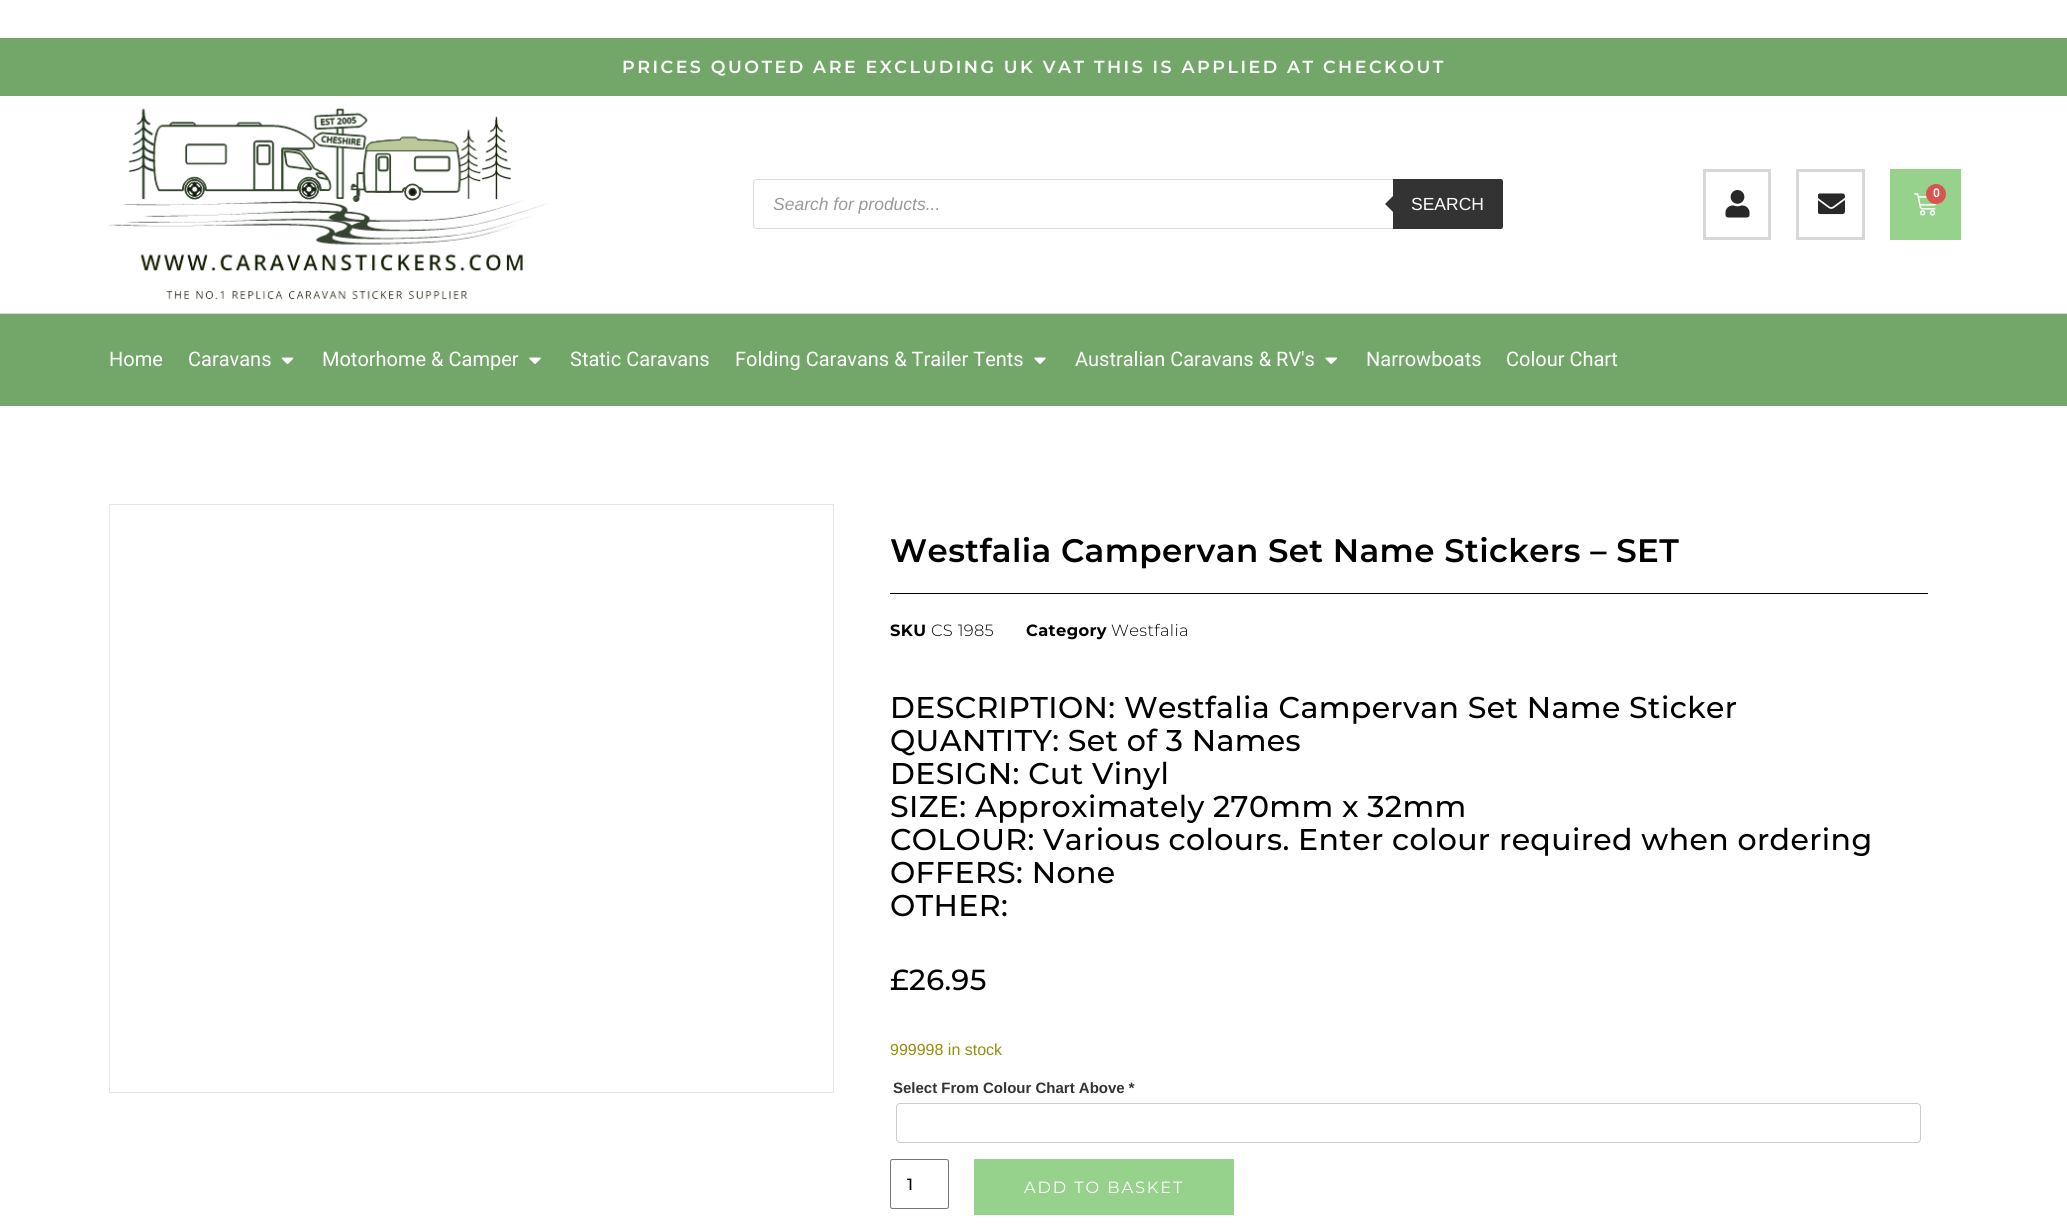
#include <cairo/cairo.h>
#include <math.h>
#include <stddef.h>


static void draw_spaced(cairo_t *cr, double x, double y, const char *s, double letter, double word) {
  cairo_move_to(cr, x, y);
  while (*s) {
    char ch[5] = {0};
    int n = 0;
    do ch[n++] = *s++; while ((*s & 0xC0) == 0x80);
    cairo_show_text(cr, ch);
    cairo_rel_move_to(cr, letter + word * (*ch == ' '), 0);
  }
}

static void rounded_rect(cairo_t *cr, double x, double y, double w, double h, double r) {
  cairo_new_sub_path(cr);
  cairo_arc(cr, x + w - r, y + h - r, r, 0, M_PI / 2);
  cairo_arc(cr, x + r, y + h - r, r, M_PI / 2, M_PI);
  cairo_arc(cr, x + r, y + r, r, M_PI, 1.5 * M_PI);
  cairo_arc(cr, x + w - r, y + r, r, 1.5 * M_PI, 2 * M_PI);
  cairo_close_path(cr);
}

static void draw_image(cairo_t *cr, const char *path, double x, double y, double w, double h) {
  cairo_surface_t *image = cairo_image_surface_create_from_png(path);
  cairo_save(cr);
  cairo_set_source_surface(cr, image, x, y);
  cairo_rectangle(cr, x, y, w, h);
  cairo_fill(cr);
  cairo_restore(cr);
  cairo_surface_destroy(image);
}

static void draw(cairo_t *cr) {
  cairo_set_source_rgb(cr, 1, 1, 1);
  cairo_paint(cr);
  cairo_set_source_rgb(cr, 115 / 255.0, 167 / 255.0, 105 / 255.0);
  cairo_rectangle(cr, 0, 38, 2067, 58);
  cairo_fill(cr);
  cairo_set_source_rgb(cr, 216 / 255.0, 216 / 255.0, 216 / 255.0);
  cairo_rectangle(cr, 0, 313, 2067, 1);
  cairo_fill(cr);
  draw_image(cr, "images/1.png", 108, 108, 442, 192);
  cairo_rectangle(cr, 1704.5, 170.5, 65, 68);
  cairo_set_line_width(cr, 3);
  cairo_stroke(cr);
  draw_image(cr, "images/2.png", 1725, 190, 25, 28);
  cairo_rectangle(cr, 1797.5, 170.5, 66, 68);
  cairo_stroke(cr);
  draw_image(cr, "images/3.png", 1818, 193, 27, 22);
  cairo_set_source_rgb(cr, 150 / 255.0, 210 / 255.0, 139 / 255.0);
  cairo_rectangle(cr, 1890, 169, 71, 71);
  cairo_fill(cr);
  draw_image(cr, "images/4.png", 1914, 193, 23, 23);
  cairo_set_source_rgb(cr, 217 / 255.0, 83 / 255.0, 79 / 255.0);
  cairo_arc(cr, 1936, 194, 10, 0, 2 * M_PI);
  cairo_fill(cr);
  rounded_rect(cr, 753.5, 179.5, 749, 49, 3.5);
  cairo_set_source_rgb(cr, 221 / 255.0, 221 / 255.0, 221 / 255.0);
  cairo_set_line_width(cr, 1);
  cairo_stroke(cr);
  cairo_set_source_rgb(cr, 51 / 255.0, 51 / 255.0, 51 / 255.0);
  cairo_new_path(cr);
  cairo_move_to(cr, 1393, 179);
  cairo_line_to(cr, 1500.5, 179);
  cairo_curve_to(cr, 1502, 179, 1503, 180, 1503, 181.5);
  cairo_line_to(cr, 1503, 226.5);
  cairo_curve_to(cr, 1503, 228, 1502, 229, 1500.5, 229);
  cairo_line_to(cr, 1393, 229);
  cairo_close_path(cr);
  cairo_fill(cr);
  cairo_new_path(cr);
  cairo_move_to(cr, 1395, 194);
  cairo_line_to(cr, 1395, 214);
  cairo_line_to(cr, 1385, 204);
  cairo_close_path(cr);
  cairo_fill(cr);
  cairo_set_source_rgb(cr, 115 / 255.0, 167 / 255.0, 105 / 255.0);
  cairo_rectangle(cr, 0, 314, 2067, 92);
  cairo_fill(cr);
  draw_image(cr, "images/5.png", 281, 357, 13, 7);
  draw_image(cr, "images/6.png", 529, 357, 12, 7);
  draw_image(cr, "images/6.png", 1034, 357, 12, 7);
  draw_image(cr, "images/7.png", 1325, 357, 12, 7);
  cairo_rectangle(cr, 109.5, 504.5, 724, 588);
  cairo_set_source_rgb(cr, 230 / 255.0, 230 / 255.0, 230 / 255.0);
  cairo_stroke(cr);
  cairo_set_source_rgb(cr, 0, 0, 0);
  cairo_rectangle(cr, 890, 593, 1038, 1);
  cairo_fill(cr);
  rounded_rect(cr, 896.5, 1103.5, 1024, 39, 3.5);
  cairo_set_source_rgb(cr, 204 / 255.0, 204 / 255.0, 204 / 255.0);
  cairo_stroke(cr);
  rounded_rect(cr, 890.5, 1159.5, 58, 49, 2);
  cairo_set_source_rgb(cr, 118 / 255.0, 118 / 255.0, 118 / 255.0);
  cairo_stroke(cr);
  cairo_set_source_rgb(cr, 150 / 255.0, 210 / 255.0, 139 / 255.0);
  cairo_rectangle(cr, 974, 1159, 260, 56);
  cairo_fill(cr);
  cairo_select_font_face(cr, "Montserrat SemiBold", CAIRO_FONT_SLANT_NORMAL, CAIRO_FONT_WEIGHT_NORMAL);
  cairo_set_font_size(cr, 17.5);
  cairo_set_source_rgb(cr, 1, 1, 1);
  draw_spaced(cr, 622, 73, "PRICES QUOTED ARE EXCLUDING UK VAT THIS IS APPLIED AT CHECKOUT", 2.5, 0);
  cairo_select_font_face(cr, "Roboto SemiBold", CAIRO_FONT_SLANT_NORMAL, CAIRO_FONT_WEIGHT_NORMAL);
  cairo_set_font_size(cr, 12);
  cairo_move_to(cr, 1933, 197);
  cairo_show_text(cr, "0");
  cairo_select_font_face(cr, "Liberation Sans", CAIRO_FONT_SLANT_ITALIC, CAIRO_FONT_WEIGHT_NORMAL);
  cairo_set_font_size(cr, 17.5);
  cairo_set_source_rgb(cr, 153 / 255.0, 153 / 255.0, 153 / 255.0);
  cairo_move_to(cr, 773, 210);
  cairo_show_text(cr, "Search for products...");
  cairo_select_font_face(cr, "Liberation Sans", CAIRO_FONT_SLANT_NORMAL, CAIRO_FONT_WEIGHT_NORMAL);
  cairo_set_source_rgb(cr, 1, 1, 1);
  cairo_move_to(cr, 1411, 210);
  cairo_show_text(cr, "SEARCH");
  cairo_select_font_face(cr, "Roboto", CAIRO_FONT_SLANT_NORMAL, CAIRO_FONT_WEIGHT_NORMAL);
  cairo_set_font_size(cr, 20);
  cairo_move_to(cr, 109, 366);
  cairo_show_text(cr, "Home");
  cairo_move_to(cr, 188, 366);
  cairo_show_text(cr, "Caravans");
  cairo_move_to(cr, 322, 366);
  cairo_show_text(cr, "Motorhome & Camper");
  cairo_move_to(cr, 570, 366);
  cairo_show_text(cr, "Static Caravans");
  cairo_move_to(cr, 735, 366);
  cairo_show_text(cr, "Folding Caravans & Trailer Tents");
  cairo_move_to(cr, 1075, 366);
  cairo_show_text(cr, "Australian Caravans & RV's");
  cairo_move_to(cr, 1366, 366);
  cairo_show_text(cr, "Narrowboats");
  cairo_move_to(cr, 1506, 366);
  cairo_show_text(cr, "Colour Chart");
  cairo_select_font_face(cr, "Montserrat SemiBold", CAIRO_FONT_SLANT_NORMAL, CAIRO_FONT_WEIGHT_NORMAL);
  cairo_set_font_size(cr, 32.5);
  cairo_set_source_rgb(cr, 0, 0, 0);
  draw_spaced(cr, 890, 562, "Westfalia Campervan Set Name Stickers – SET", 0.38, 0);
  cairo_select_font_face(cr, "Montserrat", CAIRO_FONT_SLANT_NORMAL, CAIRO_FONT_WEIGHT_BOLD);
  cairo_set_font_size(cr, 16.25);
  draw_spaced(cr, 890, 636, "SKU", 0.38, 0);
  cairo_select_font_face(cr, "Montserrat Light", CAIRO_FONT_SLANT_NORMAL, CAIRO_FONT_WEIGHT_NORMAL);
  draw_spaced(cr, 931, 636, "CS 1985", 0.38, 0);
  cairo_select_font_face(cr, "Montserrat", CAIRO_FONT_SLANT_NORMAL, CAIRO_FONT_WEIGHT_BOLD);
  draw_spaced(cr, 1026, 636, "Category", 0.38, 0);
  cairo_select_font_face(cr, "Montserrat Light", CAIRO_FONT_SLANT_NORMAL, CAIRO_FONT_WEIGHT_NORMAL);
  draw_spaced(cr, 1111, 636, "Westfalia", 0.38, 0);
  cairo_select_font_face(cr, "Montserrat Medium", CAIRO_FONT_SLANT_NORMAL, CAIRO_FONT_WEIGHT_NORMAL);
  cairo_set_font_size(cr, 30);
  draw_spaced(cr, 890, 718, "DESCRIPTION: Westfalia Campervan Set Name Sticker", 0.38, 0);
  draw_spaced(cr, 890, 751, "QUANTITY: Set of 3 Names", 0.38, 0);
  draw_spaced(cr, 890, 784, "DESIGN: Cut Vinyl", 0.38, 0);
  draw_spaced(cr, 890, 817, "SIZE: Approximately 270mm x 32mm", 0.38, 0);
  draw_spaced(cr, 890, 850, "COLOUR: Various colours. Enter colour required when ordering", 0.38, 0);
  draw_spaced(cr, 890, 883, "OFFERS: None", 0.38, 0);
  draw_spaced(cr, 890, 916, "OTHER:", 0.38, 0);
  cairo_set_font_size(cr, 29);
  draw_spaced(cr, 890, 990, "£26.95", 0.38, 0);
  cairo_select_font_face(cr, "Liberation Sans", CAIRO_FONT_SLANT_NORMAL, CAIRO_FONT_WEIGHT_NORMAL);
  cairo_set_font_size(cr, 16);
  cairo_set_source_rgb(cr, 149 / 255.0, 142 / 255.0, 9 / 255.0);
  cairo_move_to(cr, 890, 1055);
  cairo_show_text(cr, "999998 in stock");
  cairo_select_font_face(cr, "Liberation Sans", CAIRO_FONT_SLANT_NORMAL, CAIRO_FONT_WEIGHT_BOLD);
  cairo_set_font_size(cr, 15);
  cairo_set_source_rgb(cr, 51 / 255.0, 51 / 255.0, 51 / 255.0);
  cairo_move_to(cr, 893, 1093);
  cairo_show_text(cr, "Select From Colour Chart Above");
  cairo_select_font_face(cr, "Liberation Sans", CAIRO_FONT_SLANT_ITALIC, CAIRO_FONT_WEIGHT_BOLD);
  cairo_move_to(cr, 1128, 1093);
  cairo_show_text(cr, "*");
  cairo_select_font_face(cr, "Montserrat Medium", CAIRO_FONT_SLANT_NORMAL, CAIRO_FONT_WEIGHT_NORMAL);
  cairo_set_font_size(cr, 16.25);
  cairo_set_source_rgb(cr, 0, 0, 0);
  draw_spaced(cr, 907, 1190, "1", 0.38, 0);
  cairo_select_font_face(cr, "Montserrat", CAIRO_FONT_SLANT_NORMAL, CAIRO_FONT_WEIGHT_NORMAL);
  cairo_set_source_rgb(cr, 1, 1, 1);
  draw_spaced(cr, 1024, 1193, "ADD TO BASKET", 1.9, 0);
}

int main(void) {
  cairo_surface_t *surface = cairo_image_surface_create(CAIRO_FORMAT_RGB24, 2067, 1227);
  cairo_t *cr = cairo_create(surface);
  cairo_font_options_t *options = cairo_font_options_create();
  cairo_font_options_set_hint_metrics(options, CAIRO_HINT_METRICS_OFF);
  cairo_font_options_set_hint_style(options, CAIRO_HINT_STYLE_NONE);
  cairo_set_font_options(cr, options);
  cairo_set_miter_limit(cr, 4);
  draw(cr);
  cairo_surface_write_to_png(surface, "out.png");
  cairo_font_options_destroy(options);
  cairo_destroy(cr);
  cairo_surface_destroy(surface);
  return 0;
}
